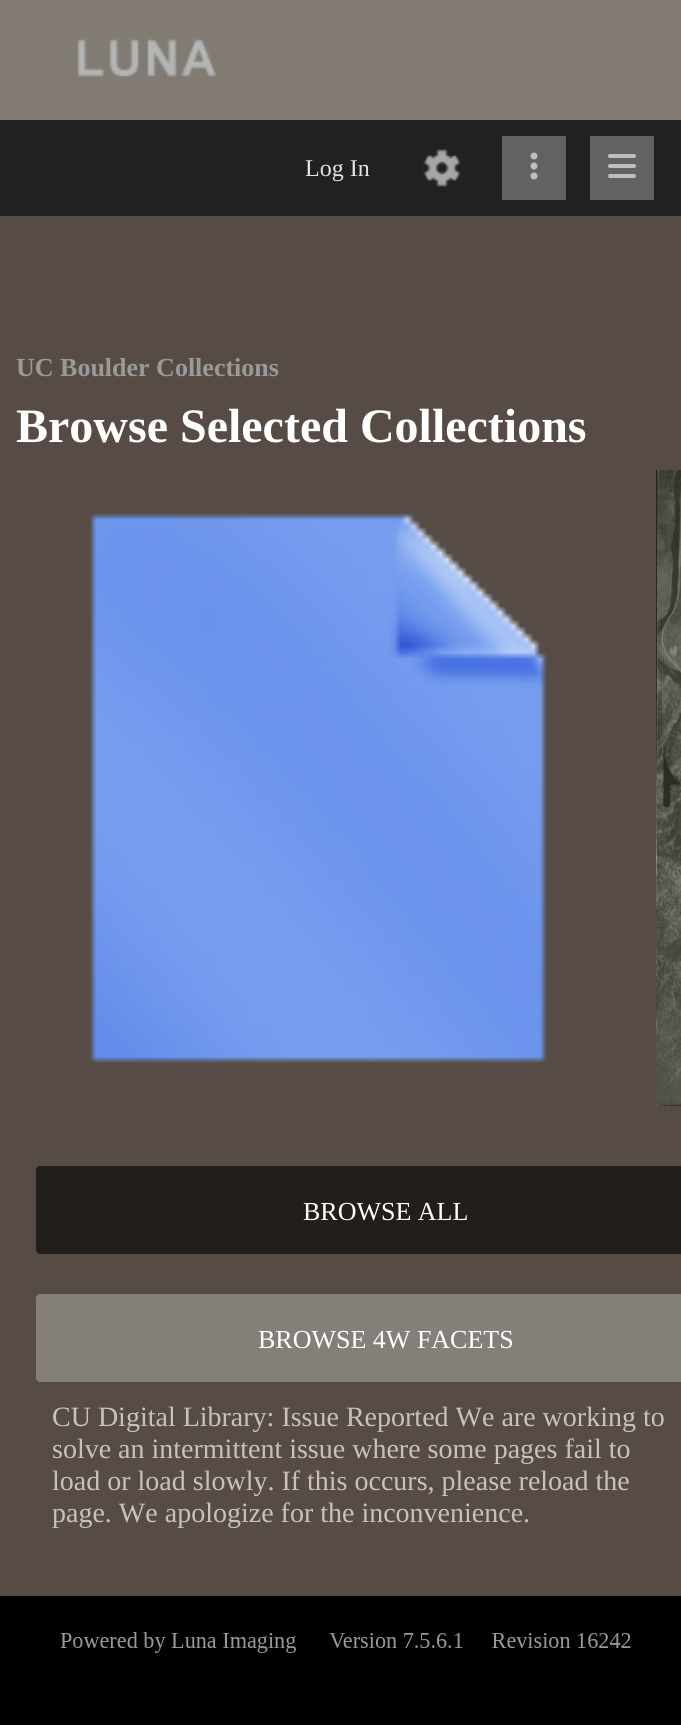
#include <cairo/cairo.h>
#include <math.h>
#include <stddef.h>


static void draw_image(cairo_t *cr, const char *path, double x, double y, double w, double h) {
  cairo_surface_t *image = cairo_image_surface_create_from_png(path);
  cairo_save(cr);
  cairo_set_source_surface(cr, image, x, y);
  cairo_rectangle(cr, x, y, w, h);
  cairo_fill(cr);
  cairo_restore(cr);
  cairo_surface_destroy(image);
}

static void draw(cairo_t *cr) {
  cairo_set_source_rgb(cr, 34 / 255.0, 32 / 255.0, 33 / 255.0);
  cairo_paint(cr);
  cairo_set_source_rgb(cr, 129 / 255.0, 123 / 255.0, 116 / 255.0);
  cairo_rectangle(cr, 0, 0, 681, 120);
  cairo_fill(cr);
  draw_image(cr, "images/1.png", 77, 39, 139, 38);
  draw_image(cr, "images/2.png", 423, 149, 38, 38);
  cairo_set_source_rgb(cr, 98 / 255.0, 98 / 255.0, 98 / 255.0);
  cairo_rectangle(cr, 502, 136, 64, 64);
  cairo_fill(cr);
  draw_image(cr, "images/3.png", 530, 152, 8, 28);
  cairo_rectangle(cr, 590, 136, 64, 64);
  cairo_fill(cr);
  draw_image(cr, "images/4.png", 608, 154, 28, 24);
  cairo_set_source_rgb(cr, 87 / 255.0, 75 / 255.0, 69 / 255.0);
  cairo_rectangle(cr, 0, 216, 681, 1380);
  cairo_fill(cr);
  draw_image(cr, "images/5.png", 90, 513, 457, 550);
  draw_image(cr, "images/6.png", 656, 470, 25, 636);
  cairo_set_source_rgb(cr, 34 / 255.0, 30 / 255.0, 28 / 255.0);
  cairo_new_path(cr);
  cairo_move_to(cr, 40, 1166);
  cairo_line_to(cr, 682, 1166);
  cairo_line_to(cr, 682, 1254);
  cairo_line_to(cr, 40, 1254);
  cairo_curve_to(cr, 38, 1254, 36, 1252, 36, 1250);
  cairo_line_to(cr, 36, 1170);
  cairo_curve_to(cr, 36, 1168, 38, 1166, 40, 1166);
  cairo_close_path(cr);
  cairo_fill(cr);
  cairo_set_source_rgb(cr, 133 / 255.0, 127 / 255.0, 122 / 255.0);
  cairo_new_path(cr);
  cairo_move_to(cr, 40, 1294);
  cairo_line_to(cr, 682, 1294);
  cairo_line_to(cr, 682, 1382);
  cairo_line_to(cr, 40, 1382);
  cairo_curve_to(cr, 38, 1382, 36, 1380, 36, 1378);
  cairo_line_to(cr, 36, 1298);
  cairo_curve_to(cr, 36, 1296, 38, 1294, 40, 1294);
  cairo_close_path(cr);
  cairo_fill(cr);
  cairo_set_source_rgb(cr, 0, 0, 0);
  cairo_rectangle(cr, 0, 1596, 681, 129);
  cairo_fill(cr);
  draw_image(cr, "images/7.png", 60, 1632, 571, 21);
  cairo_select_font_face(cr, "Liberation Serif", CAIRO_FONT_SLANT_NORMAL, CAIRO_FONT_WEIGHT_NORMAL);
  cairo_set_font_size(cr, 24);
  cairo_set_source_rgb(cr, 227 / 255.0, 227 / 255.0, 227 / 255.0);
  cairo_move_to(cr, 305, 176);
  cairo_show_text(cr, "Log In");
  cairo_select_font_face(cr, "Liberation Serif", CAIRO_FONT_SLANT_NORMAL, CAIRO_FONT_WEIGHT_BOLD);
  cairo_set_font_size(cr, 26);
  cairo_set_source_rgb(cr, 154 / 255.0, 154 / 255.0, 154 / 255.0);
  cairo_move_to(cr, 16, 376);
  cairo_show_text(cr, "UC Boulder Collections");
  cairo_set_font_size(cr, 48);
  cairo_set_source_rgb(cr, 1, 1, 1);
  cairo_move_to(cr, 16, 442);
  cairo_show_text(cr, "Browse Selected Collections");
  cairo_select_font_face(cr, "Liberation Serif", CAIRO_FONT_SLANT_NORMAL, CAIRO_FONT_WEIGHT_NORMAL);
  cairo_set_font_size(cr, 26);
  cairo_move_to(cr, 303, 1220);
  cairo_show_text(cr, "BROWSE ALL");
  cairo_move_to(cr, 258, 1348);
  cairo_show_text(cr, "BROWSE 4W FACETS");
  cairo_set_font_size(cr, 28);
  cairo_set_source_rgb(cr, 202 / 255.0, 194 / 255.0, 183 / 255.0);
  cairo_move_to(cr, 52, 1426);
  cairo_show_text(cr, "CU Digital Library: Issue Reported We are working to");
  cairo_move_to(cr, 52, 1458);
  cairo_show_text(cr, "solve an intermittent issue where some pages fail to");
  cairo_move_to(cr, 52, 1490);
  cairo_show_text(cr, "load or load slowly. If this occurs, please reload the");
  cairo_move_to(cr, 52, 1522);
  cairo_show_text(cr, "page. We apologize for the inconvenience.");
}

int main(void) {
  cairo_surface_t *surface = cairo_image_surface_create(CAIRO_FORMAT_RGB24, 681, 1725);
  cairo_t *cr = cairo_create(surface);
  cairo_font_options_t *options = cairo_font_options_create();
  cairo_font_options_set_hint_metrics(options, CAIRO_HINT_METRICS_OFF);
  cairo_font_options_set_hint_style(options, CAIRO_HINT_STYLE_NONE);
  cairo_set_font_options(cr, options);
  cairo_set_miter_limit(cr, 4);
  draw(cr);
  cairo_surface_write_to_png(surface, "out.png");
  cairo_font_options_destroy(options);
  cairo_destroy(cr);
  cairo_surface_destroy(surface);
  return 0;
}
